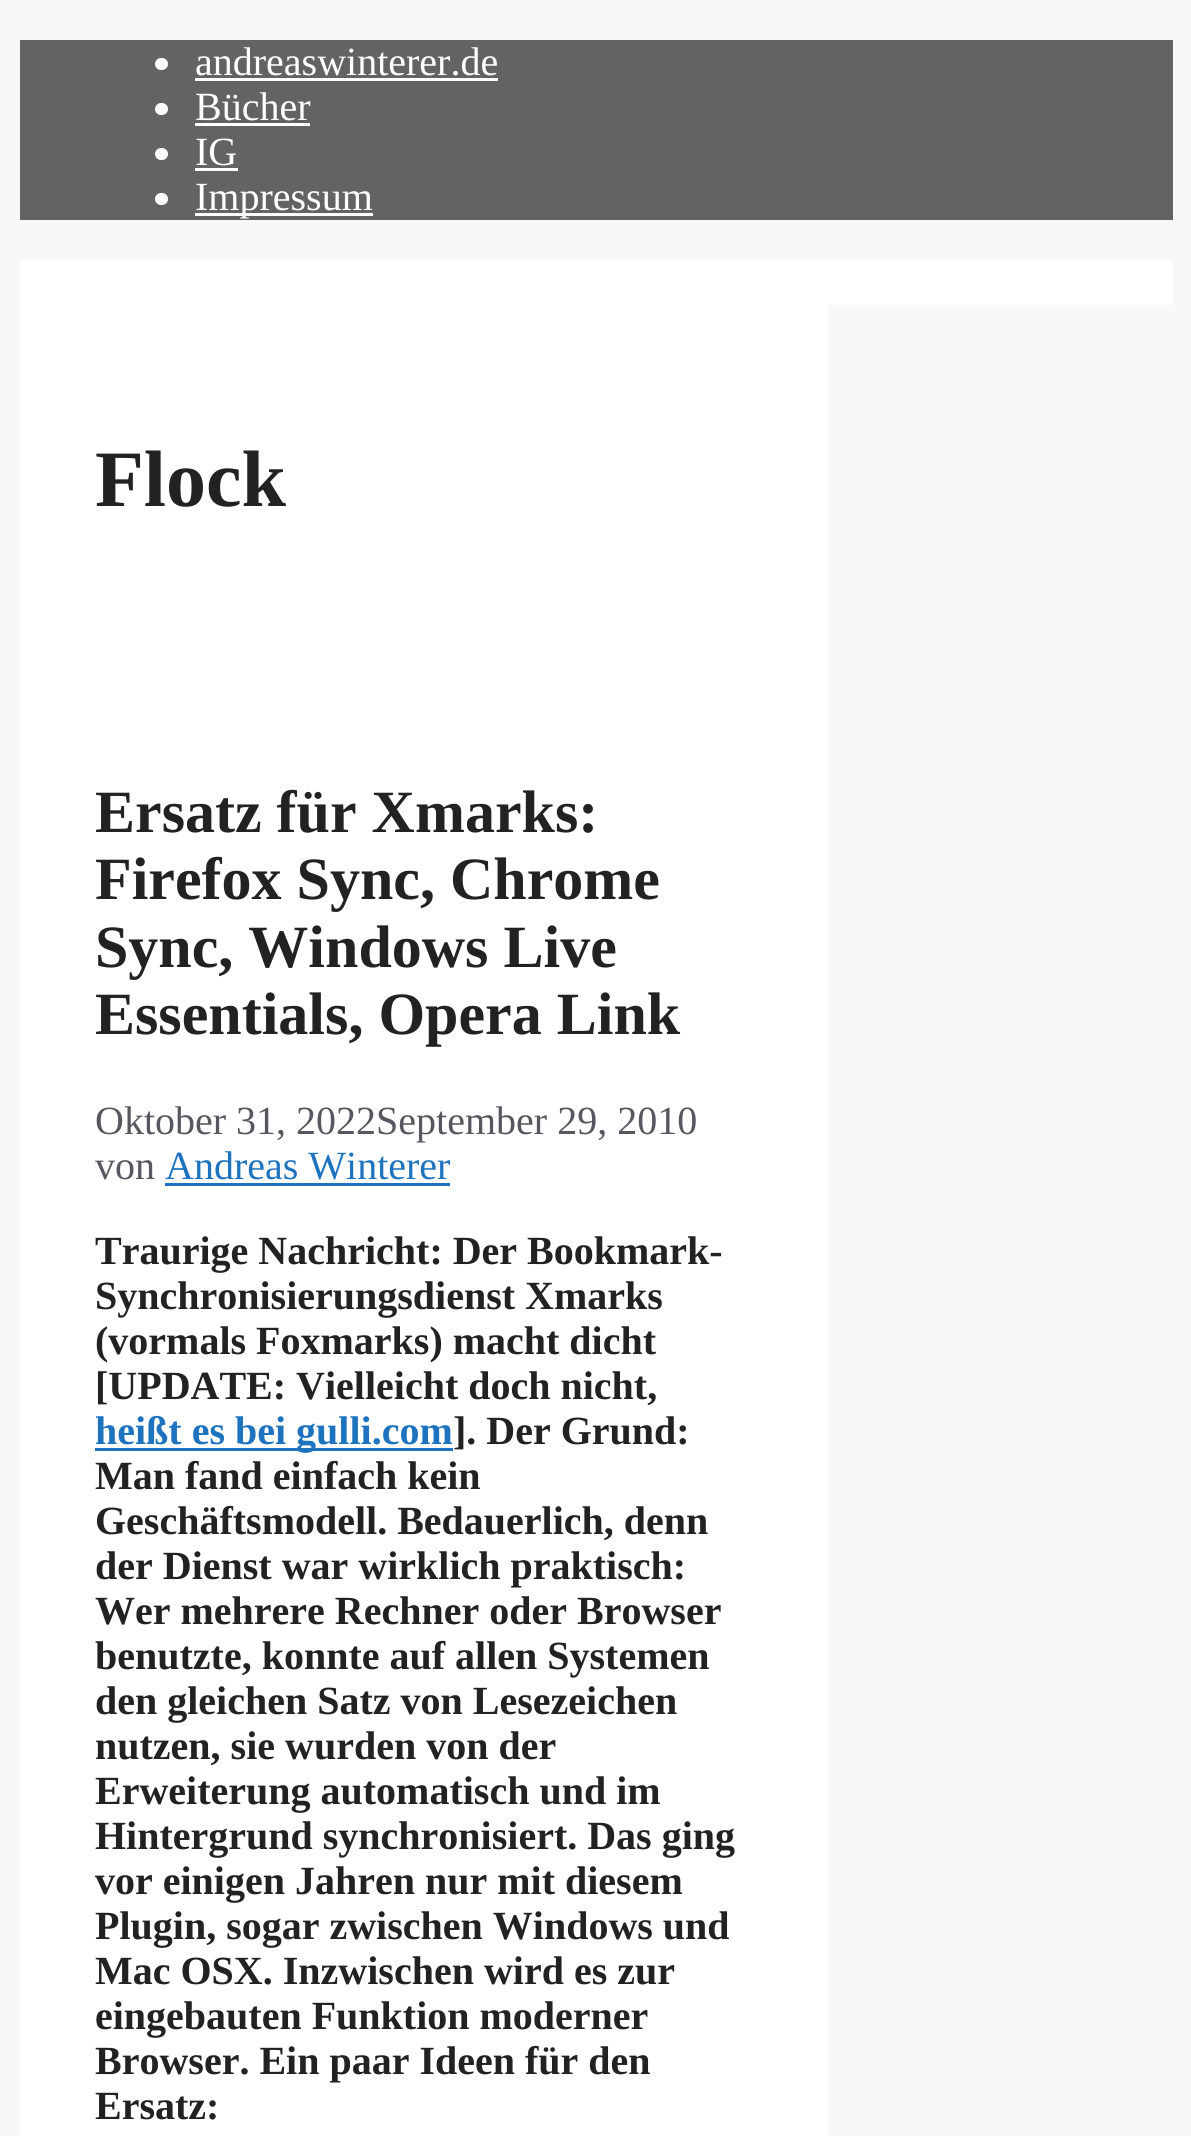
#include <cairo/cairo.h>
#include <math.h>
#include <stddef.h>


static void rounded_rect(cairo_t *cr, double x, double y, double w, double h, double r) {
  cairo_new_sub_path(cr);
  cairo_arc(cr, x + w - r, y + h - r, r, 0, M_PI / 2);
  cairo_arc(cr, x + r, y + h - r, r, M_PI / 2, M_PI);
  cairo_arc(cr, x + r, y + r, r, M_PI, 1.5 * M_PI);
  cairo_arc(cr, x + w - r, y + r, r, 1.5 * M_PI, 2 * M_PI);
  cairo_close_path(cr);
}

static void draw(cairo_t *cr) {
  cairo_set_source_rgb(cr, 247 / 255.0, 248 / 255.0, 249 / 255.0);
  cairo_paint(cr);
  cairo_set_source_rgb(cr, 99 / 255.0, 99 / 255.0, 99 / 255.0);
  cairo_rectangle(cr, 20, 40, 1153, 180);
  cairo_fill(cr);
  cairo_set_source_rgb(cr, 1, 1, 1);
  rounded_rect(cr, 155, 58, 13, 12, 6);
  cairo_fill(cr);
  cairo_rectangle(cr, 195, 78, 303, 3);
  cairo_fill(cr);
  rounded_rect(cr, 155, 103, 13, 12, 6);
  cairo_fill(cr);
  cairo_rectangle(cr, 195, 123, 115, 3);
  cairo_fill(cr);
  rounded_rect(cr, 155, 148, 13, 12, 6);
  cairo_fill(cr);
  cairo_rectangle(cr, 195, 168, 43, 3);
  cairo_fill(cr);
  rounded_rect(cr, 155, 193, 13, 12, 6);
  cairo_fill(cr);
  cairo_rectangle(cr, 195, 213, 178, 3);
  cairo_fill(cr);
  cairo_rectangle(cr, 20, 260, 1153, 45);
  cairo_fill(cr);
  cairo_rectangle(cr, 20, 305, 808, 1831);
  cairo_fill(cr);
  cairo_set_source_rgb(cr, 30 / 255.0, 115 / 255.0, 190 / 255.0);
  cairo_rectangle(cr, 165, 1183, 285, 3);
  cairo_fill(cr);
  cairo_rectangle(cr, 95, 1448, 358, 3);
  cairo_fill(cr);
  cairo_select_font_face(cr, "Liberation Serif", CAIRO_FONT_SLANT_NORMAL, CAIRO_FONT_WEIGHT_NORMAL);
  cairo_set_font_size(cr, 40);
  cairo_set_source_rgb(cr, 1, 1, 1);
  cairo_move_to(cr, 195, 75);
  cairo_show_text(cr, "andreaswinterer.de");
  cairo_move_to(cr, 195, 120);
  cairo_show_text(cr, "Bücher");
  cairo_move_to(cr, 195, 165);
  cairo_show_text(cr, "IG");
  cairo_move_to(cr, 195, 210);
  cairo_show_text(cr, "Impressum");
  cairo_select_font_face(cr, "Liberation Serif", CAIRO_FONT_SLANT_NORMAL, CAIRO_FONT_WEIGHT_BOLD);
  cairo_set_font_size(cr, 80);
  cairo_set_source_rgb(cr, 34 / 255.0, 34 / 255.0, 34 / 255.0);
  cairo_move_to(cr, 95, 506);
  cairo_show_text(cr, "Flock");
  cairo_set_font_size(cr, 60);
  cairo_move_to(cr, 95, 832);
  cairo_show_text(cr, "Ersatz für Xmarks:");
  cairo_move_to(cr, 95, 899);
  cairo_show_text(cr, "Firefox Sync, Chrome");
  cairo_move_to(cr, 95, 967);
  cairo_show_text(cr, "Sync, Windows Live");
  cairo_move_to(cr, 95, 1034);
  cairo_show_text(cr, "Essentials, Opera Link");
  cairo_select_font_face(cr, "Liberation Serif", CAIRO_FONT_SLANT_NORMAL, CAIRO_FONT_WEIGHT_NORMAL);
  cairo_set_font_size(cr, 40);
  cairo_set_source_rgb(cr, 87 / 255.0, 87 / 255.0, 96 / 255.0);
  cairo_move_to(cr, 95, 1134);
  cairo_show_text(cr, "Oktober 31, 2022September 29, 2010");
  cairo_move_to(cr, 95, 1179);
  cairo_show_text(cr, "von");
  cairo_set_source_rgb(cr, 30 / 255.0, 115 / 255.0, 190 / 255.0);
  cairo_move_to(cr, 165, 1179);
  cairo_show_text(cr, "Andreas Winterer");
  cairo_select_font_face(cr, "Liberation Serif", CAIRO_FONT_SLANT_NORMAL, CAIRO_FONT_WEIGHT_BOLD);
  cairo_set_source_rgb(cr, 34 / 255.0, 34 / 255.0, 34 / 255.0);
  cairo_move_to(cr, 95, 1264);
  cairo_show_text(cr, "Traurige Nachricht: Der Bookmark-");
  cairo_move_to(cr, 95, 1309);
  cairo_show_text(cr, "Synchronisierungsdienst Xmarks");
  cairo_move_to(cr, 95, 1354);
  cairo_show_text(cr, "(vormals Foxmarks) macht dicht");
  cairo_move_to(cr, 95, 1399);
  cairo_show_text(cr, "[UPDATE: Vielleicht doch nicht,");
  cairo_set_source_rgb(cr, 30 / 255.0, 115 / 255.0, 190 / 255.0);
  cairo_move_to(cr, 95, 1444);
  cairo_show_text(cr, "heißt es bei gulli.com");
  cairo_set_source_rgb(cr, 34 / 255.0, 34 / 255.0, 34 / 255.0);
  cairo_move_to(cr, 453, 1444);
  cairo_show_text(cr, "]. Der Grund:");
  cairo_move_to(cr, 95, 1489);
  cairo_show_text(cr, "Man fand einfach kein");
  cairo_move_to(cr, 95, 1534);
  cairo_show_text(cr, "Geschäftsmodell. Bedauerlich, denn");
  cairo_move_to(cr, 95, 1579);
  cairo_show_text(cr, "der Dienst war wirklich praktisch:");
  cairo_move_to(cr, 95, 1624);
  cairo_show_text(cr, "Wer mehrere Rechner oder Browser");
  cairo_move_to(cr, 95, 1669);
  cairo_show_text(cr, "benutzte, konnte auf allen Systemen");
  cairo_move_to(cr, 95, 1714);
  cairo_show_text(cr, "den gleichen Satz von Lesezeichen");
  cairo_move_to(cr, 95, 1759);
  cairo_show_text(cr, "nutzen, sie wurden von der");
  cairo_move_to(cr, 95, 1804);
  cairo_show_text(cr, "Erweiterung automatisch und im");
  cairo_move_to(cr, 95, 1849);
  cairo_show_text(cr, "Hintergrund synchronisiert. Das ging");
  cairo_move_to(cr, 95, 1894);
  cairo_show_text(cr, "vor einigen Jahren nur mit diesem");
  cairo_move_to(cr, 95, 1939);
  cairo_show_text(cr, "Plugin, sogar zwischen Windows und");
  cairo_move_to(cr, 95, 1984);
  cairo_show_text(cr, "Mac OSX. Inzwischen wird es zur");
  cairo_move_to(cr, 95, 2029);
  cairo_show_text(cr, "eingebauten Funktion moderner");
  cairo_move_to(cr, 95, 2074);
  cairo_show_text(cr, "Browser. Ein paar Ideen für den");
  cairo_move_to(cr, 95, 2119);
  cairo_show_text(cr, "Ersatz:");
}

int main(void) {
  cairo_surface_t *surface = cairo_image_surface_create(CAIRO_FORMAT_RGB24, 1191, 2136);
  cairo_t *cr = cairo_create(surface);
  cairo_font_options_t *options = cairo_font_options_create();
  cairo_font_options_set_hint_metrics(options, CAIRO_HINT_METRICS_OFF);
  cairo_font_options_set_hint_style(options, CAIRO_HINT_STYLE_NONE);
  cairo_set_font_options(cr, options);
  cairo_set_miter_limit(cr, 4);
  draw(cr);
  cairo_surface_write_to_png(surface, "out.png");
  cairo_font_options_destroy(options);
  cairo_destroy(cr);
  cairo_surface_destroy(surface);
  return 0;
}
